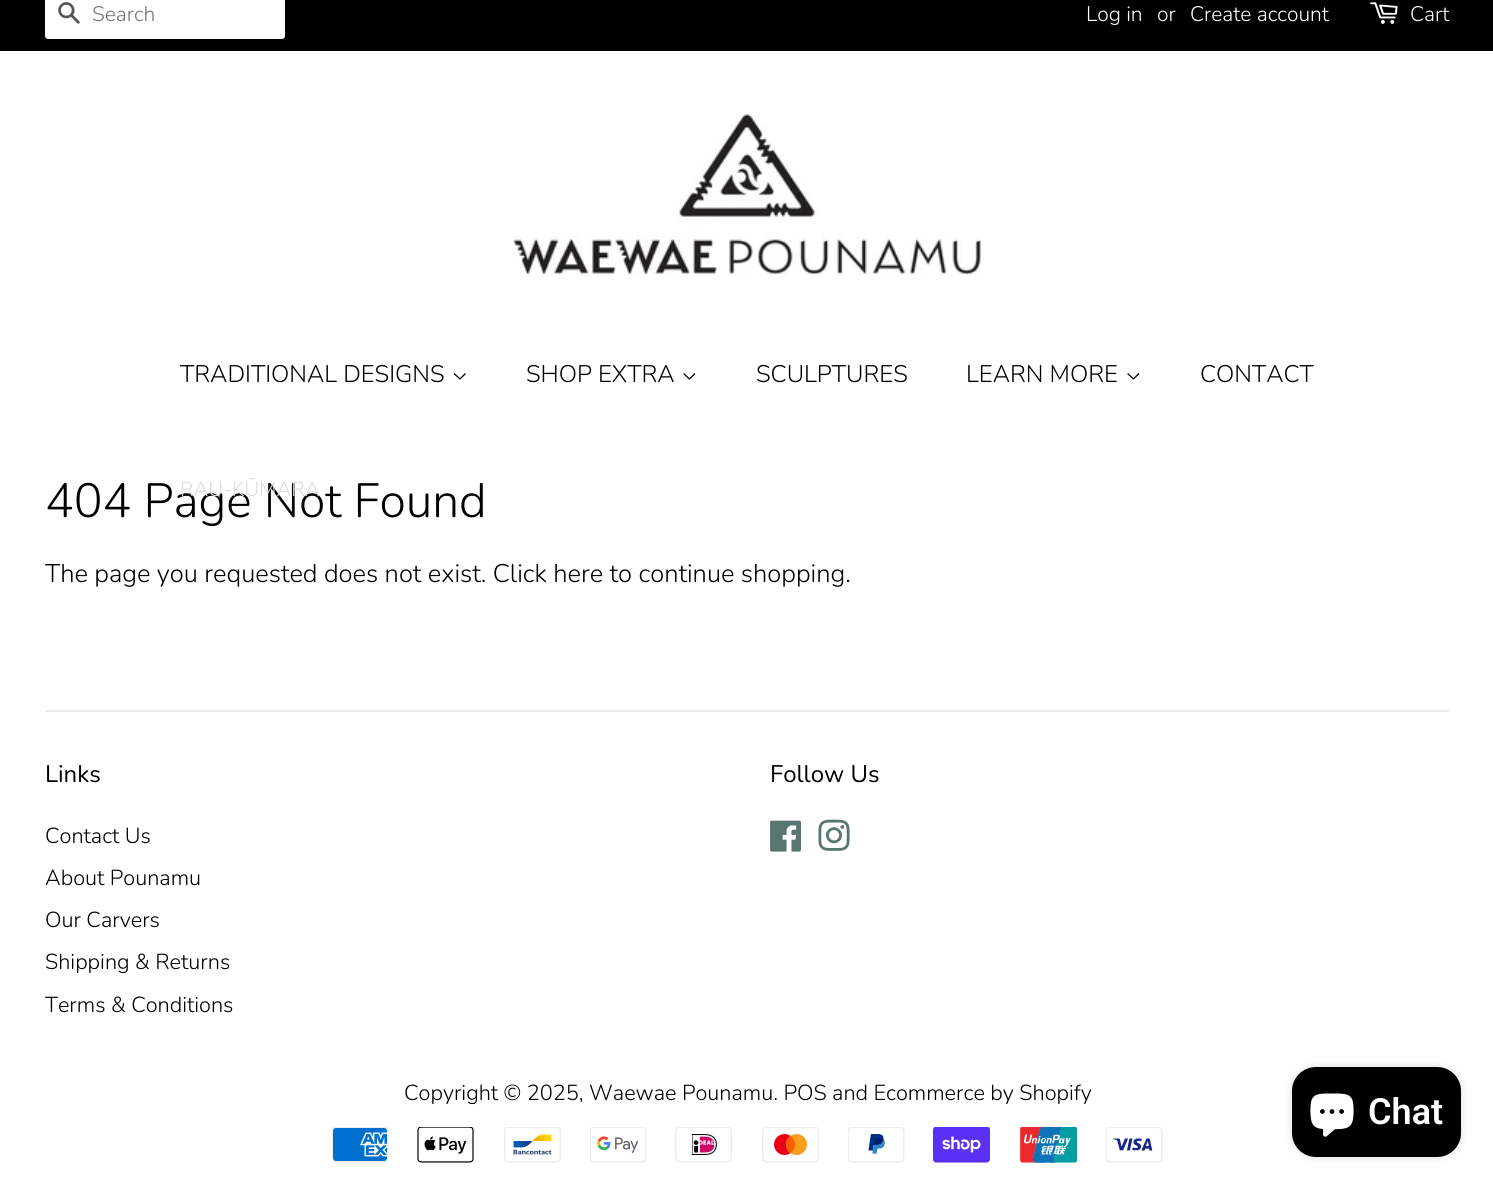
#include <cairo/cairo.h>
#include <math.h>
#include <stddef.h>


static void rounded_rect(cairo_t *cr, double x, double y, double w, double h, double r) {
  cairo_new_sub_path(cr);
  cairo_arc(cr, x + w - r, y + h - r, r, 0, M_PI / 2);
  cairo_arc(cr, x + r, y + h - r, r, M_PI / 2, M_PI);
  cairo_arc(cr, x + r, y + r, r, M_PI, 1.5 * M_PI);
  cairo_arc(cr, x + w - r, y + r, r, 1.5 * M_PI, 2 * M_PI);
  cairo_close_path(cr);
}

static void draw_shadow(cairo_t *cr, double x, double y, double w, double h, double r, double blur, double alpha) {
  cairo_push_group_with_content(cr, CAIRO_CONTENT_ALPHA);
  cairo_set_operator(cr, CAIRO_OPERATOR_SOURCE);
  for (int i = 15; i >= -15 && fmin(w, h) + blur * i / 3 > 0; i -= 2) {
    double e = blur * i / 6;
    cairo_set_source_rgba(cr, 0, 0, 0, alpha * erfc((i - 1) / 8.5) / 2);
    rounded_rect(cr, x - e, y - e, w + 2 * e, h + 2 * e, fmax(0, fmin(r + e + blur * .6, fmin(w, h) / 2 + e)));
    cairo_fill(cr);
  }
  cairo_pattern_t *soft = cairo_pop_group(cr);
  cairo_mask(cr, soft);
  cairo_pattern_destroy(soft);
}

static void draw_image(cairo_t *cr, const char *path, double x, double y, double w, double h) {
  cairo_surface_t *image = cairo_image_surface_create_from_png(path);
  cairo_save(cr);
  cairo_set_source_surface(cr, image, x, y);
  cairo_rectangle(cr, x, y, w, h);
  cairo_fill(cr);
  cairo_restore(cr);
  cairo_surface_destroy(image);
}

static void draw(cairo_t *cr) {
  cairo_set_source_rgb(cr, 1, 1, 1);
  cairo_paint(cr);
  cairo_set_source_rgb(cr, 0, 0, 0);
  cairo_rectangle(cr, 0, 0, 1493, 51);
  cairo_fill(cr);
  cairo_set_source_rgb(cr, 1, 1, 1);
  rounded_rect(cr, 45, -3, 240, 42, 3);
  cairo_fill(cr);
  draw_image(cr, "images/1.png", 58, 2, 22, 22);
  draw_image(cr, "images/2.png", 1370, 2, 28, 22);
  draw_image(cr, "images/3.png", 513, 114, 468, 162);
  draw_image(cr, "images/4.png", 453, 373, 13, 7);
  draw_image(cr, "images/5.png", 683, 373, 13, 7);
  draw_image(cr, "images/5.png", 1127, 373, 13, 7);
  cairo_set_source_rgb(cr, 235 / 255.0, 235 / 255.0, 235 / 255.0);
  cairo_rectangle(cr, 45, 710, 1404, 2);
  cairo_fill(cr);
  draw_image(cr, "images/6.png", 770, 820, 31, 32);
  draw_image(cr, "images/7.png", 818, 819, 32, 32);
  draw_image(cr, "images/8.png", 332, 1127, 57, 36);
  draw_image(cr, "images/9.png", 417, 1127, 57, 36);
  draw_image(cr, "images/10.png", 504, 1127, 57, 36);
  draw_image(cr, "images/11.png", 590, 1127, 57, 36);
  draw_image(cr, "images/12.png", 675, 1127, 57, 36);
  draw_image(cr, "images/13.png", 762, 1127, 57, 36);
  draw_image(cr, "images/14.png", 848, 1127, 57, 36);
  draw_image(cr, "images/15.png", 933, 1127, 57, 36);
  draw_image(cr, "images/16.png", 1020, 1127, 57, 36);
  draw_image(cr, "images/17.png", 1106, 1127, 57, 36);
  cairo_set_source_rgb(cr, 0, 0, 0);
  draw_shadow(cr, 1292, 1067, 169, 90, 24, 4, 0.15);
  cairo_set_source_rgb(cr, 0, 0, 0);
  rounded_rect(cr, 1292, 1067, 169, 90, 24);
  cairo_fill(cr);
  draw_image(cr, "images/18.png", 1310, 1093, 44, 44);
  cairo_select_font_face(cr, "Nunito Light", CAIRO_FONT_SLANT_NORMAL, CAIRO_FONT_WEIGHT_NORMAL);
  cairo_set_font_size(cr, 21);
  cairo_set_source_rgb(cr, 117 / 255.0, 117 / 255.0, 117 / 255.0);
  cairo_move_to(cr, 92, 21);
  cairo_show_text(cr, "Search");
  cairo_set_source_rgb(cr, 1, 1, 1);
  cairo_move_to(cr, 1086, 21);
  cairo_show_text(cr, "Log in");
  cairo_move_to(cr, 1157, 21);
  cairo_show_text(cr, "or");
  cairo_move_to(cr, 1190, 21);
  cairo_show_text(cr, "Create account");
  cairo_move_to(cr, 1410, 21);
  cairo_show_text(cr, "Cart");
  cairo_set_font_size(cr, 24);
  cairo_set_source_rgb(cr, 0, 0, 0);
  cairo_move_to(cr, 180, 382);
  cairo_show_text(cr, "TRADITIONAL DESIGNS");
  cairo_move_to(cr, 526, 382);
  cairo_show_text(cr, "SHOP EXTRA");
  cairo_move_to(cr, 756, 382);
  cairo_show_text(cr, "SCULPTURES");
  cairo_move_to(cr, 966, 382);
  cairo_show_text(cr, "LEARN MORE");
  cairo_move_to(cr, 1200, 382);
  cairo_show_text(cr, "CONTACT");
  cairo_set_font_size(cr, 48);
  cairo_move_to(cr, 45, 517);
  cairo_show_text(cr, "404 Page Not Found");
  cairo_set_font_size(cr, 20.5);
  cairo_set_source_rgb(cr, 221 / 255.0, 221 / 255.0, 221 / 255.0);
  cairo_move_to(cr, 180, 496);
  cairo_show_text(cr, "RAU-KŪMARA");
  cairo_set_font_size(cr, 25.5);
  cairo_set_source_rgb(cr, 0, 0, 0);
  cairo_move_to(cr, 45, 582);
  cairo_show_text(cr, "The page you requested does not exist. Click here to continue shopping.");
  cairo_select_font_face(cr, "Nunito", CAIRO_FONT_SLANT_NORMAL, CAIRO_FONT_WEIGHT_NORMAL);
  cairo_set_font_size(cr, 24);
  cairo_move_to(cr, 45, 782);
  cairo_show_text(cr, "Links");
  cairo_select_font_face(cr, "Nunito Light", CAIRO_FONT_SLANT_NORMAL, CAIRO_FONT_WEIGHT_NORMAL);
  cairo_set_font_size(cr, 21.7);
  cairo_move_to(cr, 45, 843);
  cairo_show_text(cr, "Contact Us");
  cairo_move_to(cr, 45, 885);
  cairo_show_text(cr, "About Pounamu");
  cairo_move_to(cr, 45, 927);
  cairo_show_text(cr, "Our Carvers");
  cairo_move_to(cr, 45, 969);
  cairo_show_text(cr, "Shipping & Returns");
  cairo_move_to(cr, 45, 1012);
  cairo_show_text(cr, "Terms & Conditions");
  cairo_select_font_face(cr, "Nunito", CAIRO_FONT_SLANT_NORMAL, CAIRO_FONT_WEIGHT_NORMAL);
  cairo_set_font_size(cr, 24);
  cairo_move_to(cr, 770, 782);
  cairo_show_text(cr, "Follow Us");
  cairo_select_font_face(cr, "Nunito Light", CAIRO_FONT_SLANT_NORMAL, CAIRO_FONT_WEIGHT_NORMAL);
  cairo_set_font_size(cr, 21.7);
  cairo_move_to(cr, 404, 1100);
  cairo_show_text(cr, "Copyright © 2025, Waewae Pounamu. POS and Ecommerce by Shopify");
  cairo_select_font_face(cr, "Roboto SemiBold", CAIRO_FONT_SLANT_NORMAL, CAIRO_FONT_WEIGHT_NORMAL);
  cairo_set_font_size(cr, 36);
  cairo_set_source_rgb(cr, 1, 1, 1);
  cairo_move_to(cr, 1368, 1124);
  cairo_show_text(cr, "Chat");
}

int main(void) {
  cairo_surface_t *surface = cairo_image_surface_create(CAIRO_FORMAT_RGB24, 1493, 1188);
  cairo_t *cr = cairo_create(surface);
  cairo_font_options_t *options = cairo_font_options_create();
  cairo_font_options_set_hint_metrics(options, CAIRO_HINT_METRICS_OFF);
  cairo_font_options_set_hint_style(options, CAIRO_HINT_STYLE_NONE);
  cairo_set_font_options(cr, options);
  cairo_set_miter_limit(cr, 4);
  draw(cr);
  cairo_surface_write_to_png(surface, "out.png");
  cairo_font_options_destroy(options);
  cairo_destroy(cr);
  cairo_surface_destroy(surface);
  return 0;
}
